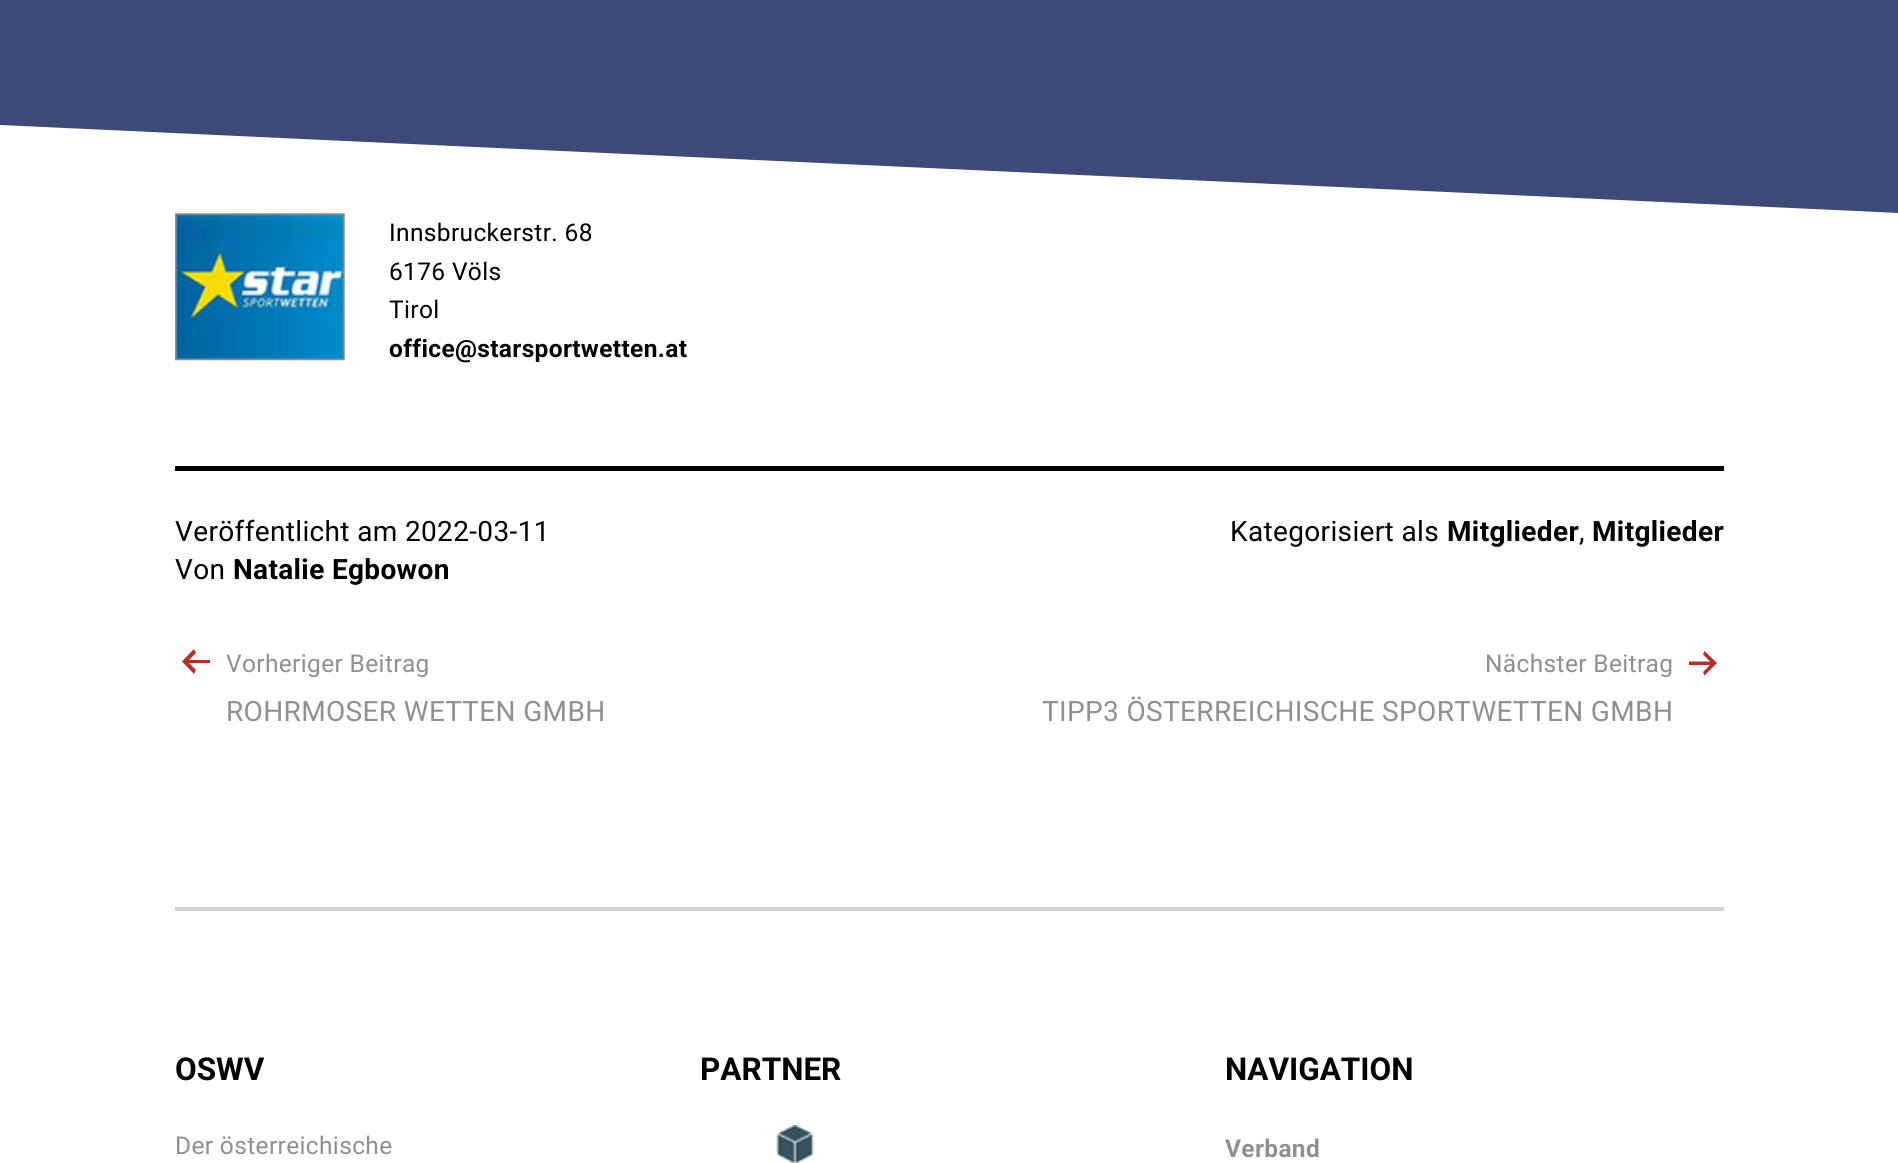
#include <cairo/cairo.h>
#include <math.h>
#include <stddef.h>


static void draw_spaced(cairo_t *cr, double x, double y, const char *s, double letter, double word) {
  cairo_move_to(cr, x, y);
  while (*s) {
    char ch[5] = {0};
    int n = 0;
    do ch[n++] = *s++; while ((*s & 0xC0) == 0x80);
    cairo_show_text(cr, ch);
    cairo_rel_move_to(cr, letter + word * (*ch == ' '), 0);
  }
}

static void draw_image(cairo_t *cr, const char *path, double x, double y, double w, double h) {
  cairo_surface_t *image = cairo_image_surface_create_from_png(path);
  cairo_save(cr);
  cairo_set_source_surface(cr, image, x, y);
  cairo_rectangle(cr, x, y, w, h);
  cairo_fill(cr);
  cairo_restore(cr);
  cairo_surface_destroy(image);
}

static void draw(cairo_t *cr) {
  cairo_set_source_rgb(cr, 1, 1, 1);
  cairo_paint(cr);
  cairo_set_source_rgb(cr, 61 / 255.0, 73 / 255.0, 118 / 255.0);
  cairo_new_path(cr);
  cairo_move_to(cr, 0, -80);
  cairo_line_to(cr, 0, 125);
  cairo_line_to(cr, 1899, 213);
  cairo_line_to(cr, 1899, -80);
  cairo_close_path(cr);
  cairo_fill(cr);
  draw_image(cr, "images/1.png", 175, 213, 170, 148);
  cairo_set_source_rgb(cr, 0, 0, 0);
  cairo_rectangle(cr, 175, 466, 1549, 5);
  cairo_fill(cr);
  cairo_set_source_rgb(cr, 185 / 255.0, 45 / 255.0, 37 / 255.0);
  cairo_set_fill_rule(cr, CAIRO_FILL_RULE_EVEN_ODD);
  cairo_new_path(cr);
  cairo_move_to(cr, 210, 663);
  cairo_line_to(cr, 210, 660);
  cairo_line_to(cr, 189, 660);
  cairo_line_to(cr, 196, 653);
  cairo_line_to(cr, 194, 649);
  cairo_line_to(cr, 182, 661.5);
  cairo_line_to(cr, 194, 674);
  cairo_line_to(cr, 196, 670);
  cairo_line_to(cr, 189, 663);
  cairo_close_path(cr);
  cairo_fill(cr);
  cairo_new_path(cr);
  cairo_move_to(cr, 1689, 665);
  cairo_line_to(cr, 1689, 661.5);
  cairo_line_to(cr, 1710, 661.5);
  cairo_line_to(cr, 1703, 654.5);
  cairo_line_to(cr, 1704.5, 651);
  cairo_line_to(cr, 1717, 663);
  cairo_line_to(cr, 1704.5, 675.5);
  cairo_line_to(cr, 1703, 672);
  cairo_line_to(cr, 1710, 665);
  cairo_close_path(cr);
  cairo_fill(cr);
  cairo_set_source_rgb(cr, 209 / 255.0, 209 / 255.0, 209 / 255.0);
  cairo_rectangle(cr, 175, 907, 1549, 4);
  cairo_fill(cr);
  draw_image(cr, "images/2.png", 776, 1125, 39, 38);
  cairo_select_font_face(cr, "Roboto", CAIRO_FONT_SLANT_NORMAL, CAIRO_FONT_WEIGHT_NORMAL);
  cairo_set_font_size(cr, 24.5);
  cairo_set_source_rgb(cr, 0, 0, 0);
  draw_spaced(cr, 389, 241, "Innsbruckerstr. 68", 0.35, 0);
  draw_spaced(cr, 389, 280, "6176 Völs", 0.35, 0);
  draw_spaced(cr, 389, 318, "Tirol", 0.35, 0);
  cairo_select_font_face(cr, "Roboto", CAIRO_FONT_SLANT_NORMAL, CAIRO_FONT_WEIGHT_BOLD);
  draw_spaced(cr, 389, 357, "office@starsportwetten.at", 0.35, 0);
  cairo_select_font_face(cr, "Roboto", CAIRO_FONT_SLANT_NORMAL, CAIRO_FONT_WEIGHT_NORMAL);
  cairo_set_font_size(cr, 28);
  draw_spaced(cr, 175, 541, "Veröffentlicht am 2022-03-11", 0.35, 0);
  draw_spaced(cr, 175, 579, "Von", 0.35, 0);
  cairo_select_font_face(cr, "Roboto", CAIRO_FONT_SLANT_NORMAL, CAIRO_FONT_WEIGHT_BOLD);
  draw_spaced(cr, 233, 579, "Natalie Egbowon", 0.35, 0);
  cairo_select_font_face(cr, "Roboto", CAIRO_FONT_SLANT_NORMAL, CAIRO_FONT_WEIGHT_NORMAL);
  draw_spaced(cr, 1230, 541, "Kategorisiert als", 0.35, 0);
  cairo_select_font_face(cr, "Roboto", CAIRO_FONT_SLANT_NORMAL, CAIRO_FONT_WEIGHT_BOLD);
  draw_spaced(cr, 1447, 541, "Mitglieder", 0.35, 0);
  cairo_select_font_face(cr, "Roboto", CAIRO_FONT_SLANT_NORMAL, CAIRO_FONT_WEIGHT_NORMAL);
  draw_spaced(cr, 1579, 541, ",", 0.35, 0);
  cairo_select_font_face(cr, "Roboto", CAIRO_FONT_SLANT_NORMAL, CAIRO_FONT_WEIGHT_BOLD);
  draw_spaced(cr, 1592, 541, "Mitglieder", 0.35, 0);
  cairo_select_font_face(cr, "Roboto", CAIRO_FONT_SLANT_NORMAL, CAIRO_FONT_WEIGHT_NORMAL);
  cairo_set_font_size(cr, 24.5);
  cairo_set_source_rgb(cr, 143 / 255.0, 144 / 255.0, 143 / 255.0);
  draw_spaced(cr, 226, 672, "Vorheriger Beitrag", 0.35, 0);
  cairo_set_font_size(cr, 28);
  draw_spaced(cr, 226, 721, "ROHRMOSER WETTEN GMBH", 0.35, 0);
  cairo_set_font_size(cr, 24.5);
  draw_spaced(cr, 1485, 672, "Nächster Beitrag", 0.35, 0);
  cairo_set_font_size(cr, 28);
  draw_spaced(cr, 1042, 721, "TIPP3 ÖSTERREICHISCHE SPORTWETTEN GMBH", 0.35, 0);
  cairo_select_font_face(cr, "Roboto", CAIRO_FONT_SLANT_NORMAL, CAIRO_FONT_WEIGHT_BOLD);
  cairo_set_font_size(cr, 31.5);
  cairo_set_source_rgb(cr, 0, 0, 0);
  cairo_move_to(cr, 175, 1080);
  cairo_show_text(cr, "OSWV");
  cairo_select_font_face(cr, "Roboto", CAIRO_FONT_SLANT_NORMAL, CAIRO_FONT_WEIGHT_NORMAL);
  cairo_set_font_size(cr, 24.5);
  cairo_set_source_rgb(cr, 143 / 255.0, 144 / 255.0, 143 / 255.0);
  draw_spaced(cr, 175, 1154, "Der österreichische", 0.35, 0);
  cairo_select_font_face(cr, "Roboto", CAIRO_FONT_SLANT_NORMAL, CAIRO_FONT_WEIGHT_BOLD);
  cairo_set_font_size(cr, 31.5);
  cairo_set_source_rgb(cr, 0, 0, 0);
  cairo_move_to(cr, 700, 1080);
  cairo_show_text(cr, "PARTNER");
  cairo_move_to(cr, 1225, 1080);
  cairo_show_text(cr, "NAVIGATION");
  cairo_set_font_size(cr, 24.5);
  cairo_set_source_rgb(cr, 143 / 255.0, 144 / 255.0, 143 / 255.0);
  draw_spaced(cr, 1225, 1157, "Verband", 0.35, 0);
}

int main(void) {
  cairo_surface_t *surface = cairo_image_surface_create(CAIRO_FORMAT_RGB24, 1898, 1163);
  cairo_t *cr = cairo_create(surface);
  cairo_font_options_t *options = cairo_font_options_create();
  cairo_font_options_set_hint_metrics(options, CAIRO_HINT_METRICS_OFF);
  cairo_font_options_set_hint_style(options, CAIRO_HINT_STYLE_NONE);
  cairo_set_font_options(cr, options);
  cairo_set_miter_limit(cr, 4);
  draw(cr);
  cairo_surface_write_to_png(surface, "out.png");
  cairo_font_options_destroy(options);
  cairo_destroy(cr);
  cairo_surface_destroy(surface);
  return 0;
}
